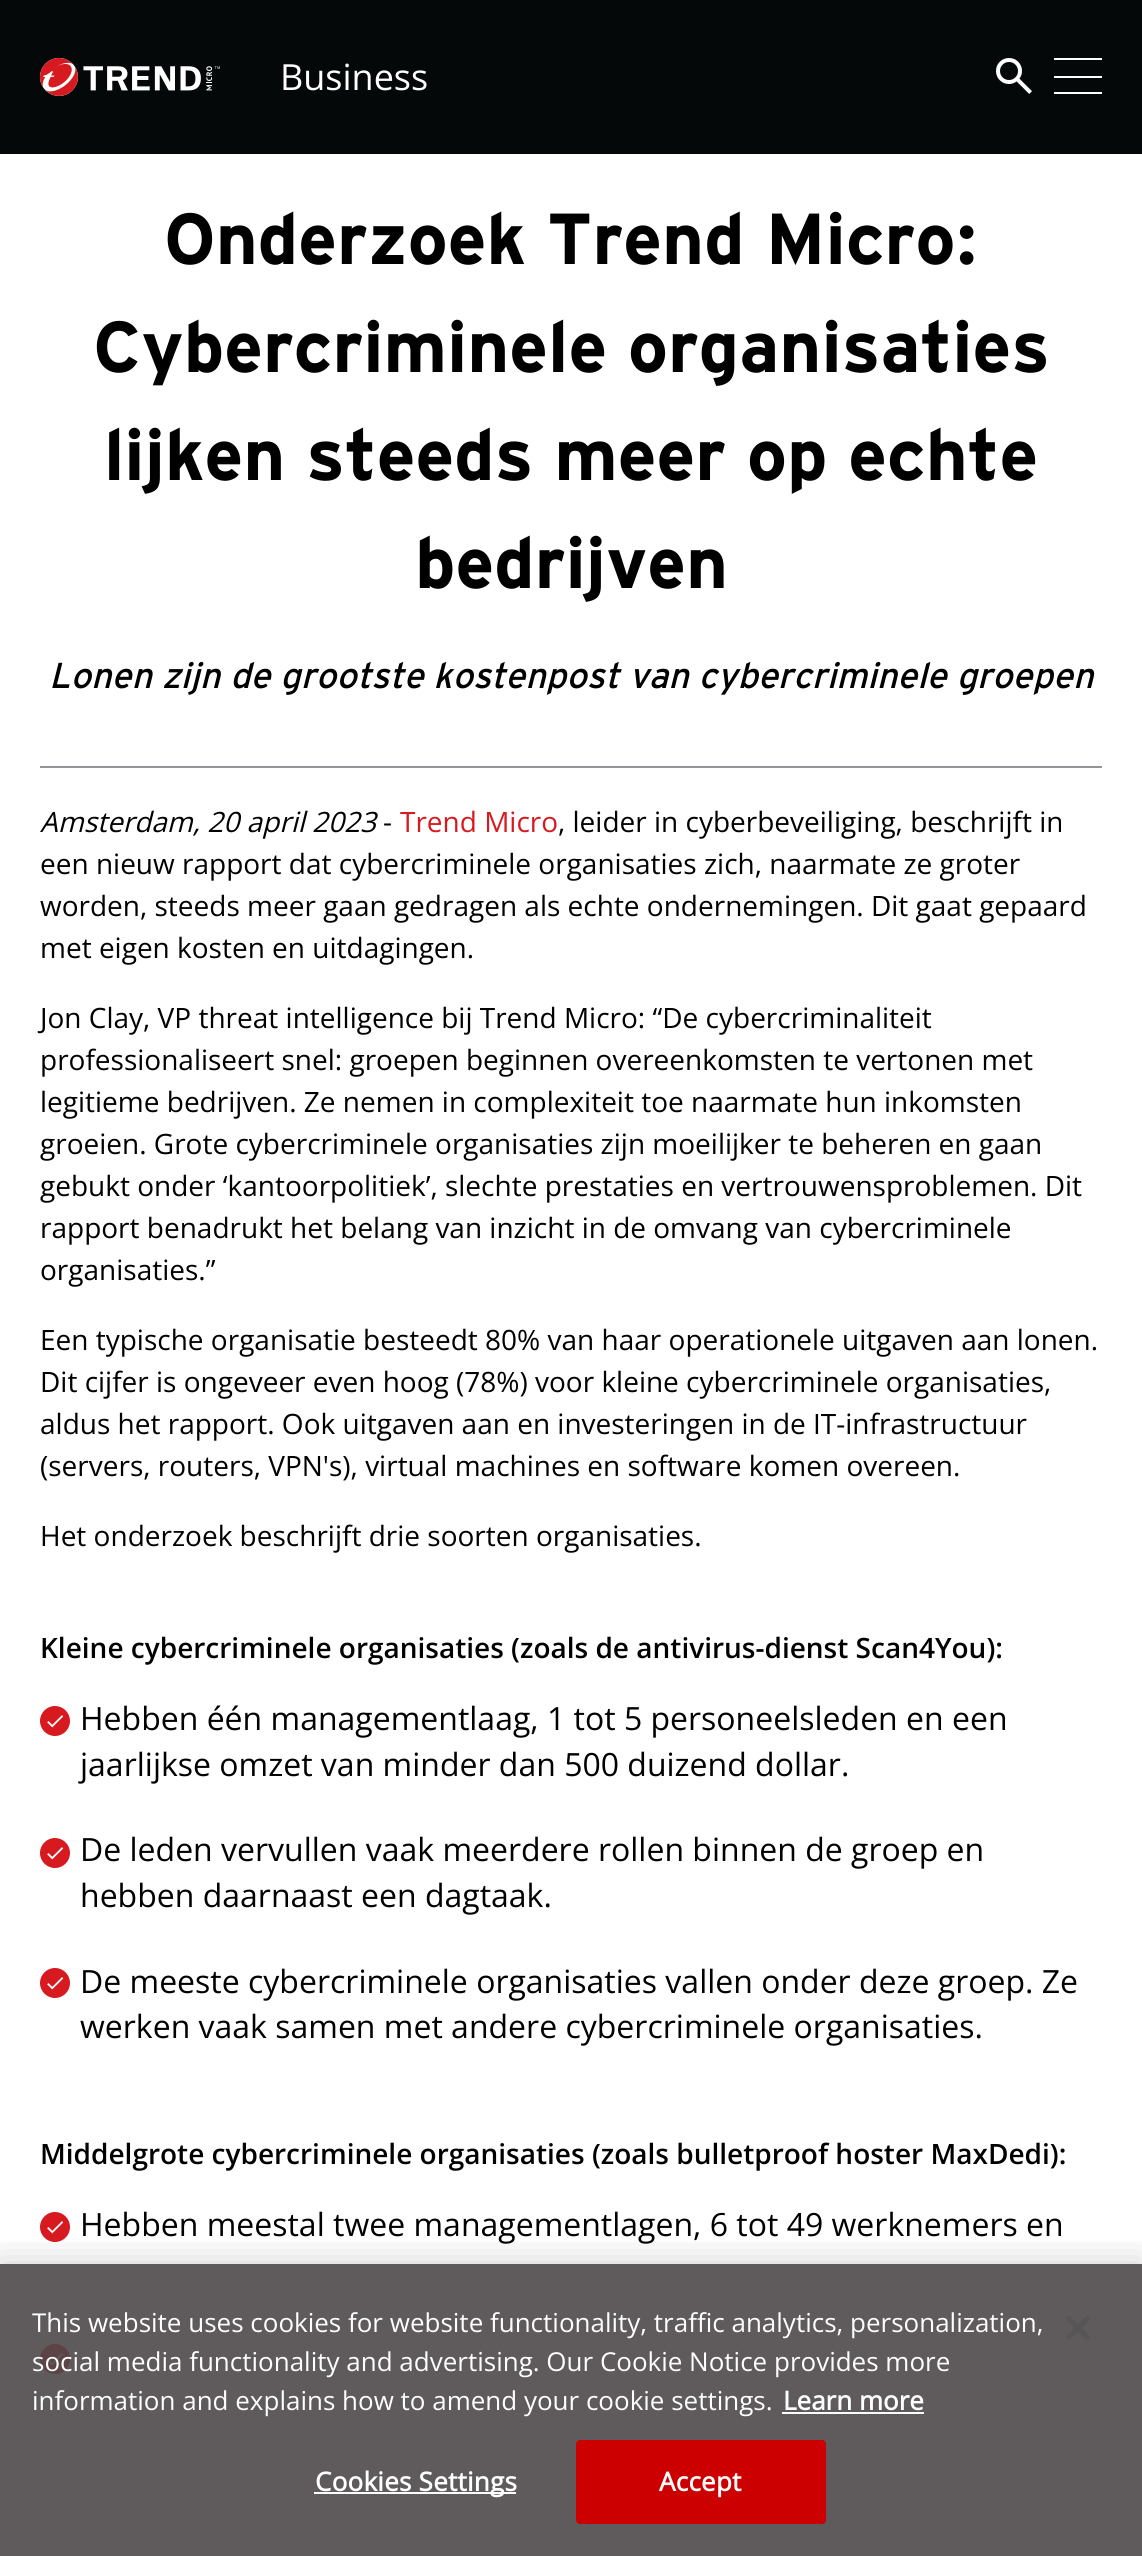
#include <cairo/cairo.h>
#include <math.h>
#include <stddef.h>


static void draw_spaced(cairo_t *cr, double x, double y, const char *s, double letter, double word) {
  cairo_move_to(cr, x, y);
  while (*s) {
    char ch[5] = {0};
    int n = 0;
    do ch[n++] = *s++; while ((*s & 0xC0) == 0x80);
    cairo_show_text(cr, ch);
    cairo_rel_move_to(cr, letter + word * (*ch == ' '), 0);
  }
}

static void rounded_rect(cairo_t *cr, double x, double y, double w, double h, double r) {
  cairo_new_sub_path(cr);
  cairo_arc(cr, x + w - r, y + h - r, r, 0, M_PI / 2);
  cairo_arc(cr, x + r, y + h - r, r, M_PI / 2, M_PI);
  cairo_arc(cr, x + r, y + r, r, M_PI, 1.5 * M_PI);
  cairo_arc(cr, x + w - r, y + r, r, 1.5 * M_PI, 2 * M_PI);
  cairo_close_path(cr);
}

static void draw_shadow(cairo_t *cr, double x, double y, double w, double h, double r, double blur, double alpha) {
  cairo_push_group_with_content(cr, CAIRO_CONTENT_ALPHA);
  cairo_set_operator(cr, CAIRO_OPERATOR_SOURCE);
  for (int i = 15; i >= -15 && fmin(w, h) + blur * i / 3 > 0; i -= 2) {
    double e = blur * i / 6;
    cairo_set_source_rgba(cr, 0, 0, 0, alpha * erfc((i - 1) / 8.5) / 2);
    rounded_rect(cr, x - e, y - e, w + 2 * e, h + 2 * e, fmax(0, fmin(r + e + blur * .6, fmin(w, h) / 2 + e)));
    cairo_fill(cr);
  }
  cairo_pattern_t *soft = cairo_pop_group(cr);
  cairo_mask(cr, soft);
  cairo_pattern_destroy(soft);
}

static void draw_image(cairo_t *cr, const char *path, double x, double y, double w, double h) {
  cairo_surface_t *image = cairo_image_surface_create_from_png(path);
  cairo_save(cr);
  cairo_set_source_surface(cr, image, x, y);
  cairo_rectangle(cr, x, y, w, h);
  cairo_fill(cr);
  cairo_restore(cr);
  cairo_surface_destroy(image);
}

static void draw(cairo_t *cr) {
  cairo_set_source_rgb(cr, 1, 1, 1);
  cairo_paint(cr);
  cairo_set_source_rgb(cr, 5 / 255.0, 8 / 255.0, 9 / 255.0);
  cairo_rectangle(cr, 0, 0, 1142, 154);
  cairo_fill(cr);
  draw_image(cr, "images/1.png", 40, 58, 180, 38);
  draw_image(cr, "images/2.png", 996, 58, 36, 36);
  cairo_set_source_rgb(cr, 1, 1, 1);
  cairo_rectangle(cr, 1054, 76, 48, 2);
  cairo_fill(cr);
  cairo_rectangle(cr, 1054, 58, 48, 2);
  cairo_fill(cr);
  cairo_rectangle(cr, 1054, 92, 48, 2);
  cairo_fill(cr);
  cairo_set_source_rgb(cr, 147 / 255.0, 149 / 255.0, 152 / 255.0);
  cairo_rectangle(cr, 40, 766, 1062, 2);
  cairo_fill(cr);
  cairo_set_source_rgb(cr, 215 / 255.0, 25 / 255.0, 32 / 255.0);
  cairo_arc(cr, 55, 1721, 15, 0, 2 * M_PI);
  cairo_fill(cr);
  draw_image(cr, "images/3.png", 47, 1715, 17, 13);
  cairo_arc(cr, 55, 1853, 15, 0, 2 * M_PI);
  cairo_fill(cr);
  draw_image(cr, "images/3.png", 47, 1847, 17, 13);
  cairo_arc(cr, 55, 1983, 15, 0, 2 * M_PI);
  cairo_fill(cr);
  draw_image(cr, "images/3.png", 47, 1977, 17, 13);
  cairo_arc(cr, 55, 2227, 15, 0, 2 * M_PI);
  cairo_fill(cr);
  draw_image(cr, "images/3.png", 47, 2221, 17, 13);
  cairo_arc(cr, 55, 2359, 15, 0, 2 * M_PI);
  cairo_fill(cr);
  draw_image(cr, "images/3.png", 47, 2353, 17, 13);
  cairo_save(cr);
  cairo_rectangle(cr, 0, 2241, 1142, 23);
  cairo_clip(cr);
  cairo_set_source_rgb(cr, 0, 0, 0);
  draw_shadow(cr, 0, 2264, 1142, 292, 0, 18, 0.2);
  cairo_restore(cr);
  cairo_set_source_rgba(cr, 78 / 255.0, 73 / 255.0, 75 / 255.0, 0.9);
  cairo_rectangle(cr, 0, 2264, 1142, 292);
  cairo_fill(cr);
  cairo_set_source_rgb(cr, 1, 1, 1);
  cairo_rectangle(cr, 782, 2412, 142, 2);
  cairo_fill(cr);
  cairo_rectangle(cr, 314, 2492, 202, 2);
  cairo_fill(cr);
  cairo_set_source_rgb(cr, 204 / 255.0, 0, 0);
  rounded_rect(cr, 577, 2441, 248, 82, 3);
  cairo_fill_preserve(cr);
  cairo_stroke(cr);
  draw_image(cr, "images/4.png", 1066, 2316, 24, 24);
  cairo_select_font_face(cr, "Open Sans", CAIRO_FONT_SLANT_NORMAL, CAIRO_FONT_WEIGHT_NORMAL);
  cairo_set_font_size(cr, 36);
  cairo_set_source_rgb(cr, 1, 1, 1);
  cairo_move_to(cr, 280, 90);
  cairo_show_text(cr, "Business");
  cairo_select_font_face(cr, "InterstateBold", CAIRO_FONT_SLANT_NORMAL, CAIRO_FONT_WEIGHT_BOLD);
  cairo_set_font_size(cr, 72);
  cairo_set_source_rgb(cr, 0, 0, 0);
  cairo_move_to(cr, 164, 264);
  cairo_show_text(cr, "Onderzoek Trend Micro:");
  cairo_move_to(cr, 93, 372);
  cairo_show_text(cr, "Cybercriminele organisaties");
  cairo_move_to(cr, 104, 480);
  cairo_show_text(cr, "lijken steeds meer op echte");
  cairo_move_to(cr, 415, 588);
  cairo_show_text(cr, "bedrijven");
  cairo_select_font_face(cr, "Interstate", CAIRO_FONT_SLANT_ITALIC, CAIRO_FONT_WEIGHT_NORMAL);
  cairo_set_font_size(cr, 36);
  cairo_move_to(cr, 49, 688);
  cairo_show_text(cr, "Lonen zijn de grootste kostenpost van cybercriminele groepen");
  cairo_select_font_face(cr, "Open Sans", CAIRO_FONT_SLANT_ITALIC, CAIRO_FONT_WEIGHT_NORMAL);
  cairo_set_font_size(cr, 28);
  cairo_move_to(cr, 40, 832);
  cairo_show_text(cr, "Amsterdam, 20 april 2023");
  cairo_select_font_face(cr, "Open Sans", CAIRO_FONT_SLANT_NORMAL, CAIRO_FONT_WEIGHT_NORMAL);
  cairo_move_to(cr, 383, 832);
  cairo_show_text(cr, "-");
  cairo_set_source_rgb(cr, 215 / 255.0, 25 / 255.0, 32 / 255.0);
  cairo_move_to(cr, 400, 832);
  cairo_show_text(cr, "Trend Micro");
  cairo_set_source_rgb(cr, 0, 0, 0);
  cairo_move_to(cr, 558, 832);
  cairo_show_text(cr, ", leider in cyberbeveiliging, beschrijft in");
  cairo_move_to(cr, 40, 874);
  cairo_show_text(cr, "een nieuw rapport dat cybercriminele organisaties zich, naarmate ze groter");
  cairo_move_to(cr, 40, 916);
  cairo_show_text(cr, "worden, steeds meer gaan gedragen als echte ondernemingen. Dit gaat gepaard");
  cairo_move_to(cr, 40, 958);
  cairo_show_text(cr, "met eigen kosten en uitdagingen.");
  cairo_move_to(cr, 40, 1028);
  cairo_show_text(cr, "Jon Clay, VP threat intelligence bij Trend Micro: “De cybercriminaliteit");
  cairo_move_to(cr, 40, 1070);
  cairo_show_text(cr, "professionaliseert snel: groepen beginnen overeenkomsten te vertonen met");
  cairo_move_to(cr, 40, 1112);
  cairo_show_text(cr, "legitieme bedrijven. Ze nemen in complexiteit toe naarmate hun inkomsten");
  cairo_move_to(cr, 40, 1154);
  cairo_show_text(cr, "groeien. Grote cybercriminele organisaties zijn moeilijker te beheren en gaan");
  cairo_move_to(cr, 40, 1196);
  cairo_show_text(cr, "gebukt onder ‘kantoorpolitiek’, slechte prestaties en vertrouwensproblemen. Dit");
  cairo_move_to(cr, 40, 1238);
  cairo_show_text(cr, "rapport benadrukt het belang van inzicht in de omvang van cybercriminele");
  cairo_move_to(cr, 40, 1280);
  cairo_show_text(cr, "organisaties.”");
  cairo_move_to(cr, 40, 1350);
  cairo_show_text(cr, "Een typische organisatie besteedt 80% van haar operationele uitgaven aan lonen.");
  cairo_move_to(cr, 40, 1392);
  cairo_show_text(cr, "Dit cijfer is ongeveer even hoog (78%) voor kleine cybercriminele organisaties,");
  cairo_move_to(cr, 40, 1434);
  cairo_show_text(cr, "aldus het rapport. Ook uitgaven aan en investeringen in de IT-infrastructuur");
  cairo_move_to(cr, 40, 1476);
  cairo_show_text(cr, "(servers, routers, VPN's), virtual machines en software komen overeen.");
  cairo_move_to(cr, 40, 1546);
  cairo_show_text(cr, "Het onderzoek beschrijft drie soorten organisaties.");
  cairo_select_font_face(cr, "Open Sans SemiBold", CAIRO_FONT_SLANT_NORMAL, CAIRO_FONT_WEIGHT_NORMAL);
  cairo_move_to(cr, 40, 1658);
  cairo_show_text(cr, "Kleine cybercriminele organisaties (zoals de antivirus-dienst Scan4You):");
  cairo_select_font_face(cr, "Open Sans", CAIRO_FONT_SLANT_NORMAL, CAIRO_FONT_WEIGHT_NORMAL);
  cairo_set_font_size(cr, 32);
  cairo_move_to(cr, 80, 1730);
  cairo_show_text(cr, "Hebben één managementlaag, 1 tot 5 personeelsleden en een");
  cairo_move_to(cr, 80, 1776);
  cairo_show_text(cr, "jaarlijkse omzet van minder dan 500 duizend dollar.");
  cairo_move_to(cr, 80, 1861);
  cairo_show_text(cr, "De leden vervullen vaak meerdere rollen binnen de groep en");
  cairo_move_to(cr, 80, 1907);
  cairo_show_text(cr, "hebben daarnaast een dagtaak.");
  cairo_move_to(cr, 80, 1993);
  cairo_show_text(cr, "De meeste cybercriminele organisaties vallen onder deze groep. Ze");
  cairo_move_to(cr, 80, 2038);
  cairo_show_text(cr, "werken vaak samen met andere cybercriminele organisaties.");
  cairo_select_font_face(cr, "Open Sans SemiBold", CAIRO_FONT_SLANT_NORMAL, CAIRO_FONT_WEIGHT_NORMAL);
  cairo_set_font_size(cr, 28);
  cairo_move_to(cr, 40, 2164);
  cairo_show_text(cr, "Middelgrote cybercriminele organisaties (zoals bulletproof hoster MaxDedi):");
  cairo_select_font_face(cr, "Open Sans", CAIRO_FONT_SLANT_NORMAL, CAIRO_FONT_WEIGHT_NORMAL);
  cairo_set_font_size(cr, 32);
  cairo_move_to(cr, 80, 2236);
  cairo_show_text(cr, "Hebben meestal twee managementlagen, 6 tot 49 werknemers en");
  cairo_set_font_size(cr, 26);
  cairo_set_source_rgb(cr, 1, 1, 1);
  cairo_move_to(cr, 32, 2332);
  cairo_show_text(cr, "This website uses cookies for website functionality, traffic analytics, personalization,");
  cairo_move_to(cr, 32, 2371);
  cairo_show_text(cr, "social media functionality and advertising. Our Cookie Notice provides more");
  cairo_move_to(cr, 32, 2410);
  cairo_show_text(cr, "information and explains how to amend your cookie settings.");
  cairo_select_font_face(cr, "Open Sans", CAIRO_FONT_SLANT_NORMAL, CAIRO_FONT_WEIGHT_BOLD);
  cairo_move_to(cr, 783, 2410);
  cairo_show_text(cr, "Learn more");
  draw_spaced(cr, 315, 2491, "Cookies Settings", 0.25, 0);
  draw_spaced(cr, 659, 2491, "Accept", 0.25, 0);
}

int main(void) {
  cairo_surface_t *surface = cairo_image_surface_create(CAIRO_FORMAT_RGB24, 1142, 2556);
  cairo_t *cr = cairo_create(surface);
  cairo_font_options_t *options = cairo_font_options_create();
  cairo_font_options_set_hint_metrics(options, CAIRO_HINT_METRICS_OFF);
  cairo_font_options_set_hint_style(options, CAIRO_HINT_STYLE_NONE);
  cairo_set_font_options(cr, options);
  cairo_set_miter_limit(cr, 4);
  draw(cr);
  cairo_surface_write_to_png(surface, "out.png");
  cairo_font_options_destroy(options);
  cairo_destroy(cr);
  cairo_surface_destroy(surface);
  return 0;
}
